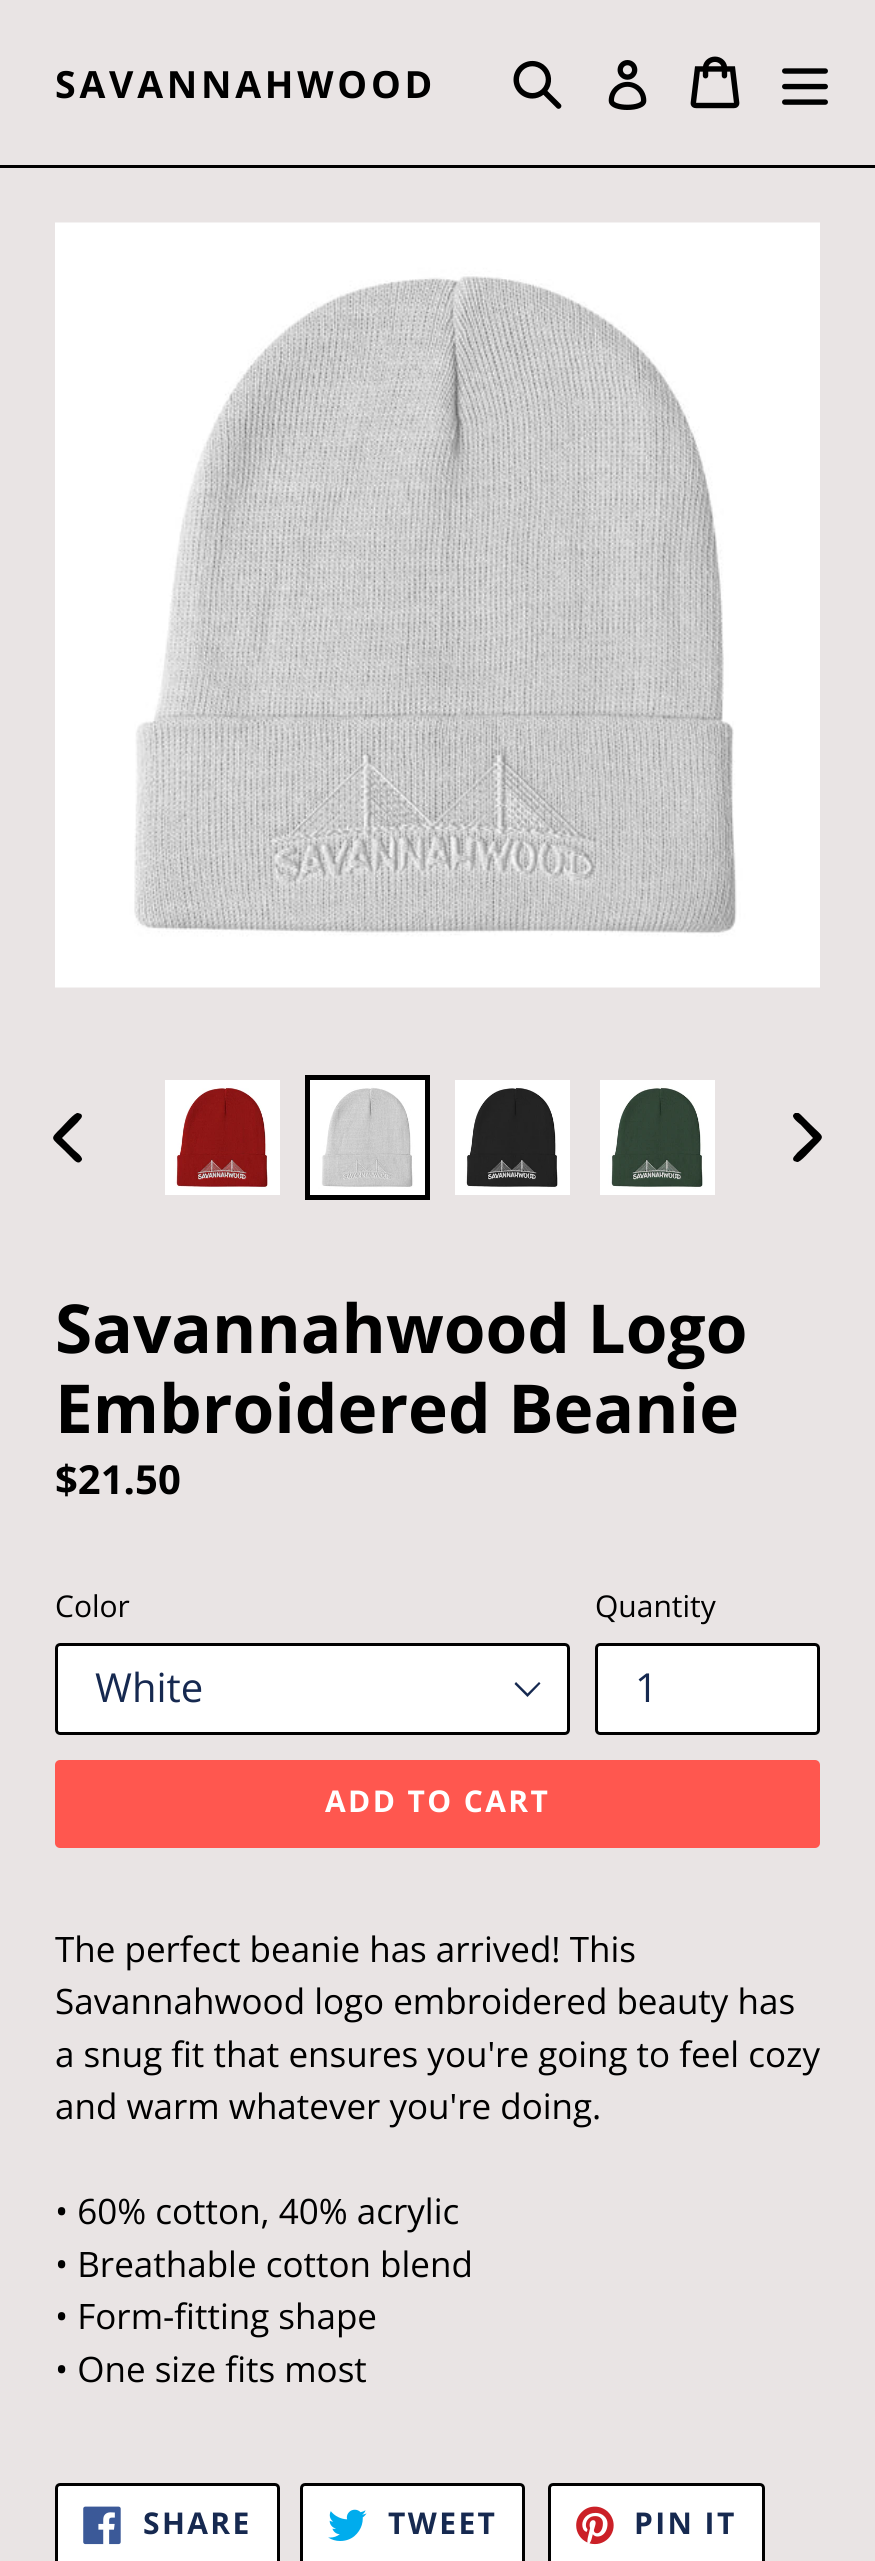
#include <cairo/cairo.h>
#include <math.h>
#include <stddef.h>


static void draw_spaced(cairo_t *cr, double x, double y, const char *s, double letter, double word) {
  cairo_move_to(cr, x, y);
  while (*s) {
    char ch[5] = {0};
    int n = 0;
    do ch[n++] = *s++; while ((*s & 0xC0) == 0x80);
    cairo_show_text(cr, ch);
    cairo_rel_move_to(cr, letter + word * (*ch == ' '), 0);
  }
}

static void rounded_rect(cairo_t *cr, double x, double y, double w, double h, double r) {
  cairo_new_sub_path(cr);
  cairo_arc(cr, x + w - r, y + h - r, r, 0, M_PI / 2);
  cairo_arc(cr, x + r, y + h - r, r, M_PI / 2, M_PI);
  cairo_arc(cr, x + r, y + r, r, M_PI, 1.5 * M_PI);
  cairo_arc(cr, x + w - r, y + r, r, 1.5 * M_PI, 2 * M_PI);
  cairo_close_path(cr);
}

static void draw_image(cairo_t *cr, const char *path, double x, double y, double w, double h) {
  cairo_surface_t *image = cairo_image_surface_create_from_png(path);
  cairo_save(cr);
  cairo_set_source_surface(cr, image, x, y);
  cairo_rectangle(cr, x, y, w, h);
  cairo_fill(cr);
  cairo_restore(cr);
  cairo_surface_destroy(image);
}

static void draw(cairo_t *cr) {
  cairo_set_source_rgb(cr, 233 / 255.0, 228 / 255.0, 228 / 255.0);
  cairo_paint(cr);
  cairo_set_source_rgb(cr, 0, 0, 0);
  cairo_rectangle(cr, 0, 165, 875, 3);
  cairo_fill(cr);
  draw_image(cr, "images/1.png", 513, 60, 49, 49);
  draw_image(cr, "images/2.png", 608, 60, 39, 50);
  draw_image(cr, "images/3.png", 690, 56, 50, 53);
  draw_image(cr, "images/4.png", 782, 68, 46, 37);
  draw_image(cr, "images/5.png", 55, 222, 765, 766);
  cairo_new_path(cr);
  cairo_move_to(cr, 78, 1113);
  cairo_line_to(cr, 81, 1114);
  cairo_curve_to(cr, 84, 1117, 79, 1120, 78, 1122);
  cairo_line_to(cr, 62, 1138);
  cairo_line_to(cr, 74, 1150);
  cairo_curve_to(cr, 76, 1152, 85, 1158, 81, 1161);
  cairo_curve_to(cr, 78, 1165, 74, 1160, 72, 1158);
  cairo_line_to(cr, 65, 1151);
  cairo_curve_to(cr, 51, 1137, 49, 1140, 61, 1128);
  cairo_curve_to(cr, 64, 1125, 75, 1112, 78, 1113);
  cairo_close_path(cr);
  cairo_fill(cr);
  draw_image(cr, "images/6.png", 165, 1080, 115, 115);
  cairo_rectangle(cr, 307.5, 1077.5, 120, 120);
  cairo_set_line_width(cr, 5);
  cairo_stroke(cr);
  draw_image(cr, "images/7.png", 310, 1080, 115, 115);
  draw_image(cr, "images/8.png", 455, 1080, 115, 115);
  draw_image(cr, "images/9.png", 600, 1080, 115, 115);
  cairo_save(cr);
  cairo_rectangle(cr, 783, 1113, 50, 50);
  cairo_clip(cr);
  cairo_new_path(cr);
  cairo_move_to(cr, 797, 1162);
  cairo_line_to(cr, 794, 1161);
  cairo_curve_to(cr, 791, 1158, 796, 1155, 797, 1153);
  cairo_line_to(cr, 813, 1138);
  cairo_line_to(cr, 801, 1125);
  cairo_curve_to(cr, 799, 1123, 790, 1117, 794, 1114);
  cairo_curve_to(cr, 797, 1110, 801, 1115, 803, 1117);
  cairo_line_to(cr, 810, 1124);
  cairo_curve_to(cr, 824, 1138, 826, 1135, 814, 1147);
  cairo_curve_to(cr, 811, 1150, 800, 1163, 797, 1162);
  cairo_close_path(cr);
  cairo_fill(cr);
  cairo_restore(cr);
  cairo_set_source_rgb(cr, 1, 1, 1);
  rounded_rect(cr, 55, 1643, 515, 92, 5);
  cairo_fill(cr);
  cairo_set_source_rgb(cr, 22 / 255.0, 41 / 255.0, 80 / 255.0);
  cairo_new_path(cr);
  cairo_move_to(cr, 527.5, 1697);
  cairo_line_to(cr, 514.5, 1684);
  cairo_line_to(cr, 516, 1682);
  cairo_line_to(cr, 527.5, 1693.5);
  cairo_line_to(cr, 539, 1682);
  cairo_line_to(cr, 540.5, 1683.5);
  cairo_close_path(cr);
  cairo_fill(cr);
  rounded_rect(cr, 56.5, 1644.5, 512, 89, 3.5);
  cairo_set_source_rgb(cr, 0, 0, 0);
  cairo_set_line_width(cr, 3);
  cairo_stroke(cr);
  cairo_set_source_rgb(cr, 1, 1, 1);
  rounded_rect(cr, 596.5, 1644.5, 222, 89, 3.5);
  cairo_fill_preserve(cr);
  cairo_set_source_rgb(cr, 0, 0, 0);
  cairo_stroke(cr);
  cairo_set_source_rgb(cr, 1, 87 / 255.0, 79 / 255.0);
  rounded_rect(cr, 55, 1760, 765, 88, 5);
  cairo_fill(cr);
  cairo_set_source_rgb(cr, 1, 1, 1);
  rounded_rect(cr, 56.5, 2484.5, 222, 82, 3.5);
  cairo_fill_preserve(cr);
  cairo_set_source_rgb(cr, 0, 0, 0);
  cairo_stroke(cr);
  draw_image(cr, "images/10.png", 83, 2506, 38, 39);
  cairo_set_source_rgb(cr, 1, 1, 1);
  rounded_rect(cr, 301.5, 2484.5, 222, 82, 3.5);
  cairo_fill_preserve(cr);
  cairo_set_source_rgb(cr, 0, 0, 0);
  cairo_stroke(cr);
  draw_image(cr, "images/11.png", 328, 2509, 39, 32);
  cairo_set_source_rgb(cr, 1, 1, 1);
  rounded_rect(cr, 549.5, 2484.5, 214, 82, 3.5);
  cairo_fill_preserve(cr);
  cairo_set_source_rgb(cr, 0, 0, 0);
  cairo_stroke(cr);
  draw_image(cr, "images/12.png", 576, 2506, 38, 39);
  cairo_select_font_face(cr, "Open Sans", CAIRO_FONT_SLANT_NORMAL, CAIRO_FONT_WEIGHT_BOLD);
  cairo_set_font_size(cr, 37.5);
  draw_spaced(cr, 55, 98, "SAVANNAHWOOD", 3.75, 0);
  cairo_set_font_size(cr, 67.5);
  cairo_move_to(cr, 55, 1353);
  cairo_show_text(cr, "Savannahwood Logo");
  cairo_move_to(cr, 55, 1433);
  cairo_show_text(cr, "Embroidered Beanie");
  cairo_set_font_size(cr, 40);
  cairo_move_to(cr, 55, 1494);
  cairo_show_text(cr, "$21.50");
  cairo_select_font_face(cr, "Open Sans", CAIRO_FONT_SLANT_NORMAL, CAIRO_FONT_WEIGHT_NORMAL);
  cairo_set_font_size(cr, 30);
  cairo_move_to(cr, 55, 1617);
  cairo_show_text(cr, "Color");
  cairo_set_font_size(cr, 40);
  cairo_set_source_rgb(cr, 22 / 255.0, 41 / 255.0, 80 / 255.0);
  cairo_move_to(cr, 95, 1702);
  cairo_show_text(cr, "White");
  cairo_set_font_size(cr, 30);
  cairo_set_source_rgb(cr, 0, 0, 0);
  cairo_move_to(cr, 595, 1617);
  cairo_show_text(cr, "Quantity");
  cairo_set_font_size(cr, 40);
  cairo_set_source_rgb(cr, 22 / 255.0, 41 / 255.0, 80 / 255.0);
  cairo_move_to(cr, 635, 1702);
  cairo_show_text(cr, "1");
  cairo_select_font_face(cr, "Open Sans", CAIRO_FONT_SLANT_NORMAL, CAIRO_FONT_WEIGHT_BOLD);
  cairo_set_font_size(cr, 30);
  cairo_set_source_rgb(cr, 1, 1, 1);
  draw_spaced(cr, 325, 1812, "ADD TO CART", 2.4, 0);
  cairo_select_font_face(cr, "Open Sans", CAIRO_FONT_SLANT_NORMAL, CAIRO_FONT_WEIGHT_NORMAL);
  cairo_set_font_size(cr, 35);
  cairo_set_source_rgb(cr, 0, 0, 0);
  cairo_move_to(cr, 55, 1962);
  cairo_show_text(cr, "The perfect beanie has arrived! This");
  cairo_move_to(cr, 55, 2014);
  cairo_show_text(cr, "Savannahwood logo embroidered beauty has");
  cairo_move_to(cr, 55, 2067);
  cairo_show_text(cr, "a snug fit that ensures you're going to feel cozy");
  cairo_move_to(cr, 55, 2119);
  cairo_show_text(cr, "and warm whatever you're doing.");
  cairo_move_to(cr, 55, 2224);
  cairo_show_text(cr, "• 60% cotton, 40% acrylic");
  cairo_move_to(cr, 55, 2277);
  cairo_show_text(cr, "• Breathable cotton blend");
  cairo_move_to(cr, 55, 2329);
  cairo_show_text(cr, "• Form-fitting shape");
  cairo_move_to(cr, 55, 2382);
  cairo_show_text(cr, "• One size fits most");
  cairo_select_font_face(cr, "Open Sans", CAIRO_FONT_SLANT_NORMAL, CAIRO_FONT_WEIGHT_BOLD);
  cairo_set_font_size(cr, 30);
  cairo_set_source_rgb(cr, 22 / 255.0, 41 / 255.0, 80 / 255.0);
  draw_spaced(cr, 143, 2534, "SHARE", 2.4, 0);
  draw_spaced(cr, 388, 2534, "TWEET", 2.4, 0);
  draw_spaced(cr, 634, 2534, "PIN IT", 2.4, 0);
}

int main(void) {
  cairo_surface_t *surface = cairo_image_surface_create(CAIRO_FORMAT_RGB24, 875, 2561);
  cairo_t *cr = cairo_create(surface);
  cairo_font_options_t *options = cairo_font_options_create();
  cairo_font_options_set_hint_metrics(options, CAIRO_HINT_METRICS_OFF);
  cairo_font_options_set_hint_style(options, CAIRO_HINT_STYLE_NONE);
  cairo_set_font_options(cr, options);
  cairo_set_miter_limit(cr, 4);
  draw(cr);
  cairo_surface_write_to_png(surface, "out.png");
  cairo_font_options_destroy(options);
  cairo_destroy(cr);
  cairo_surface_destroy(surface);
  return 0;
}
